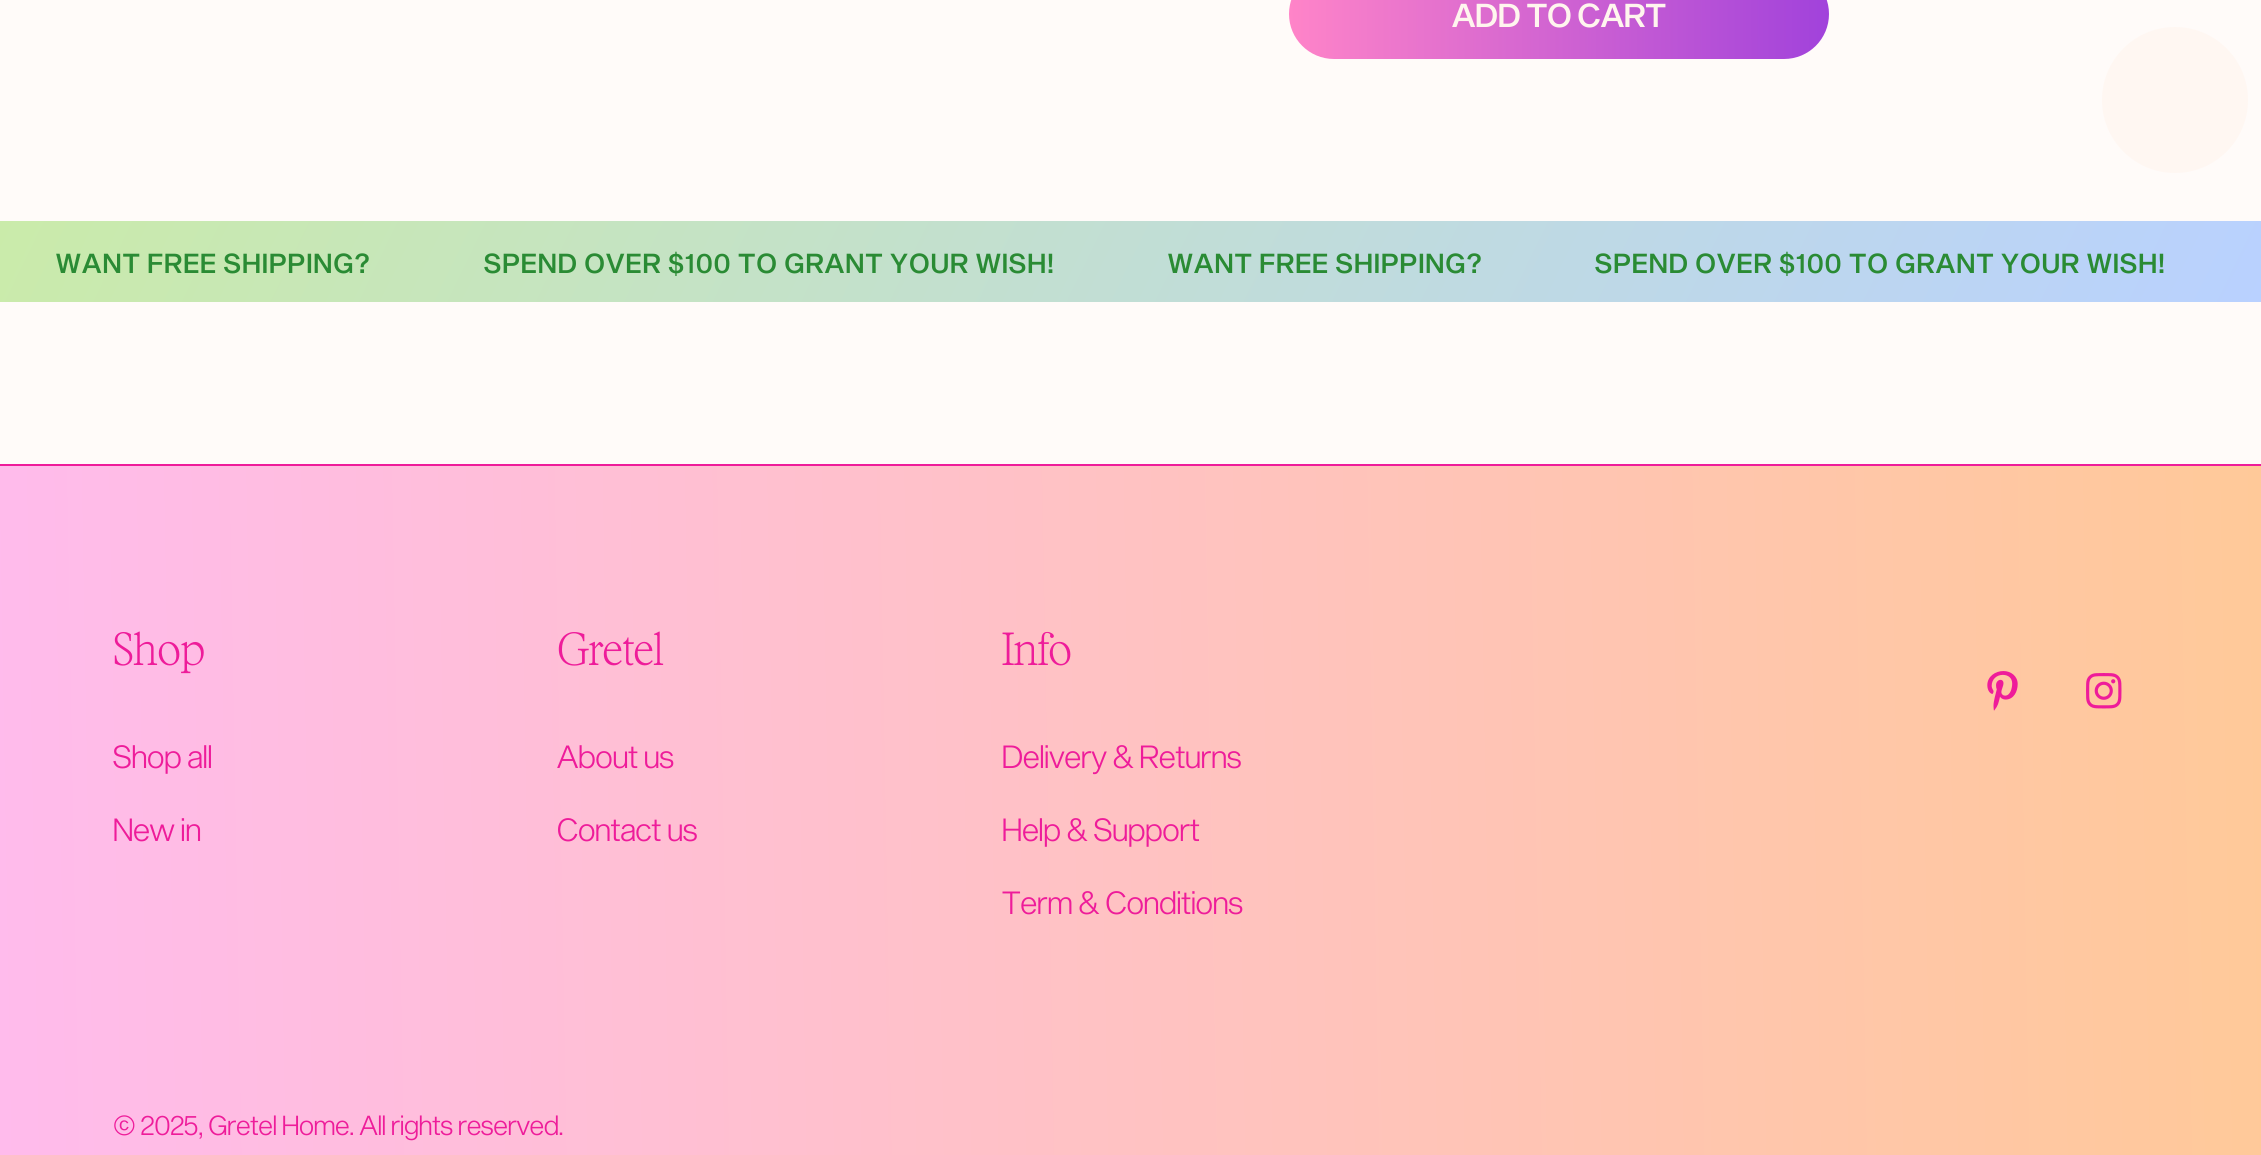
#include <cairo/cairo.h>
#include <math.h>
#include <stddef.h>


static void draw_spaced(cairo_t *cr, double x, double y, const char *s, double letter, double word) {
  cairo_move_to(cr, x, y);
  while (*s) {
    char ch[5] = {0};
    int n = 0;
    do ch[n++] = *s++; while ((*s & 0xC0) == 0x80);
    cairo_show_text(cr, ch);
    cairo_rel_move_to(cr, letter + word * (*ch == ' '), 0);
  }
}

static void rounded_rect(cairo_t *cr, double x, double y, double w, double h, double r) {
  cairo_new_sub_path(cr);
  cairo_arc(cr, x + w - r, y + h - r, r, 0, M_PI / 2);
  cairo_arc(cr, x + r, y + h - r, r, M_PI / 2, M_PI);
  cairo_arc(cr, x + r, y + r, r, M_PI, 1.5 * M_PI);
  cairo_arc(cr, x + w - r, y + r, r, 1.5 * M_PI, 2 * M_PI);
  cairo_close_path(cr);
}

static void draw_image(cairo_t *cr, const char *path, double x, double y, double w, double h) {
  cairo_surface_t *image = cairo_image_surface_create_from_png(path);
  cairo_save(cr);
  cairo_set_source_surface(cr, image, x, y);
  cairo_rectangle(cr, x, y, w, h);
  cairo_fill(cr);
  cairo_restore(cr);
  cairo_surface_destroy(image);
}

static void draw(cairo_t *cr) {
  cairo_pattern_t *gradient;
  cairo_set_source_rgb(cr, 1, 251 / 255.0, 249 / 255.0);
  cairo_paint(cr);
  gradient = cairo_pattern_create_linear(1289, 14, 1829, 13);
  cairo_pattern_add_color_stop_rgba(gradient, 0, 1, 132 / 255.0, 200 / 255.0, 1);
  cairo_pattern_add_color_stop_rgba(gradient, 1, 161 / 255.0, 66 / 255.0, 219 / 255.0, 1);
  cairo_set_source(cr, gradient);
  cairo_pattern_destroy(gradient);
  rounded_rect(cr, 1289, -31, 540, 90, 45);
  cairo_fill(cr);
  cairo_set_source_rgb(cr, 1, 247 / 255.0, 242 / 255.0);
  cairo_arc(cr, 2175, 100, 73, 0, 2 * M_PI);
  cairo_fill(cr);
  gradient = cairo_pattern_create_linear(201, -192, 2060, 714);
  cairo_pattern_add_color_stop_rgba(gradient, 0, 202 / 255.0, 235 / 255.0, 170 / 255.0, 1);
  cairo_pattern_add_color_stop_rgba(gradient, 1, 185 / 255.0, 209 / 255.0, 1, 1);
  cairo_set_source(cr, gradient);
  cairo_pattern_destroy(gradient);
  cairo_rectangle(cr, 0, 221, 2261, 81);
  cairo_fill(cr);
  gradient = cairo_pattern_create_linear(-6.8, 895, 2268, 855);
  cairo_pattern_add_color_stop_rgba(gradient, 0, 1, 187 / 255.0, 236 / 255.0, 1);
  cairo_pattern_add_color_stop_rgba(gradient, 1, 1, 201 / 255.0, 153 / 255.0, 1);
  cairo_set_source(cr, gradient);
  cairo_pattern_destroy(gradient);
  cairo_rectangle(cr, 0, 466, 2261, 689);
  cairo_fill(cr);
  cairo_set_source_rgb(cr, 238 / 255.0, 28 / 255.0, 154 / 255.0);
  cairo_rectangle(cr, 0, 464, 2261, 2);
  cairo_fill(cr);
  draw_image(cr, "images/1.png", 1987, 671, 31, 40);
  draw_image(cr, "images/2.png", 2086, 673, 36, 36);
  cairo_select_font_face(cr, "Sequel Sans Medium", CAIRO_FONT_SLANT_NORMAL, CAIRO_FONT_WEIGHT_NORMAL);
  cairo_set_font_size(cr, 32.5);
  cairo_set_source_rgb(cr, 1, 245 / 255.0, 238 / 255.0);
  cairo_move_to(cr, 1452, 27);
  cairo_show_text(cr, "ADD TO CART");
  cairo_set_font_size(cr, 27);
  cairo_set_source_rgb(cr, 42 / 255.0, 139 / 255.0, 52 / 255.0);
  draw_spaced(cr, 56, 273, "WANT FREE SHIPPING?", 1.35, 0);
  draw_spaced(cr, 484, 273, "SPEND OVER $100 TO GRANT YOUR WISH!", 1.35, 0);
  draw_spaced(cr, 1168, 273, "WANT FREE SHIPPING?", 1.35, 0);
  draw_spaced(cr, 1595, 273, "SPEND OVER $100 TO GRANT YOUR WISH!", 1.35, 0);
  cairo_select_font_face(cr, "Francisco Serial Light", CAIRO_FONT_SLANT_NORMAL, CAIRO_FONT_WEIGHT_NORMAL);
  cairo_set_font_size(cr, 45);
  cairo_set_source_rgb(cr, 238 / 255.0, 28 / 255.0, 154 / 255.0);
  draw_spaced(cr, 113, 665, "Shop", -1, 0);
  cairo_select_font_face(cr, "Sequel Sans Light", CAIRO_FONT_SLANT_NORMAL, CAIRO_FONT_WEIGHT_NORMAL);
  cairo_set_font_size(cr, 31.5);
  cairo_move_to(cr, 113, 768);
  cairo_show_text(cr, "Shop all");
  cairo_move_to(cr, 113, 841);
  cairo_show_text(cr, "New in");
  cairo_select_font_face(cr, "Francisco Serial Light", CAIRO_FONT_SLANT_NORMAL, CAIRO_FONT_WEIGHT_NORMAL);
  cairo_set_font_size(cr, 45);
  draw_spaced(cr, 557, 665, "Gretel", -1, 0);
  cairo_select_font_face(cr, "Sequel Sans Light", CAIRO_FONT_SLANT_NORMAL, CAIRO_FONT_WEIGHT_NORMAL);
  cairo_set_font_size(cr, 31.5);
  cairo_move_to(cr, 557, 768);
  cairo_show_text(cr, "About us");
  cairo_move_to(cr, 557, 841);
  cairo_show_text(cr, "Contact us");
  cairo_select_font_face(cr, "Francisco Serial Light", CAIRO_FONT_SLANT_NORMAL, CAIRO_FONT_WEIGHT_NORMAL);
  cairo_set_font_size(cr, 45);
  draw_spaced(cr, 1002, 665, "Info", -1, 0);
  cairo_select_font_face(cr, "Sequel Sans Light", CAIRO_FONT_SLANT_NORMAL, CAIRO_FONT_WEIGHT_NORMAL);
  cairo_set_font_size(cr, 31.5);
  cairo_move_to(cr, 1002, 768);
  cairo_show_text(cr, "Delivery & Returns");
  cairo_move_to(cr, 1002, 841);
  cairo_show_text(cr, "Help & Support");
  cairo_move_to(cr, 1002, 914);
  cairo_show_text(cr, "Term & Conditions");
  cairo_set_font_size(cr, 27);
  cairo_move_to(cr, 113, 1135);
  cairo_show_text(cr, "© 2025, Gretel Home. All rights reserved.");
}

int main(void) {
  cairo_surface_t *surface = cairo_image_surface_create(CAIRO_FORMAT_RGB24, 2261, 1155);
  cairo_t *cr = cairo_create(surface);
  cairo_font_options_t *options = cairo_font_options_create();
  cairo_font_options_set_hint_metrics(options, CAIRO_HINT_METRICS_OFF);
  cairo_font_options_set_hint_style(options, CAIRO_HINT_STYLE_NONE);
  cairo_set_font_options(cr, options);
  cairo_set_miter_limit(cr, 4);
  draw(cr);
  cairo_surface_write_to_png(surface, "out.png");
  cairo_font_options_destroy(options);
  cairo_destroy(cr);
  cairo_surface_destroy(surface);
  return 0;
}
